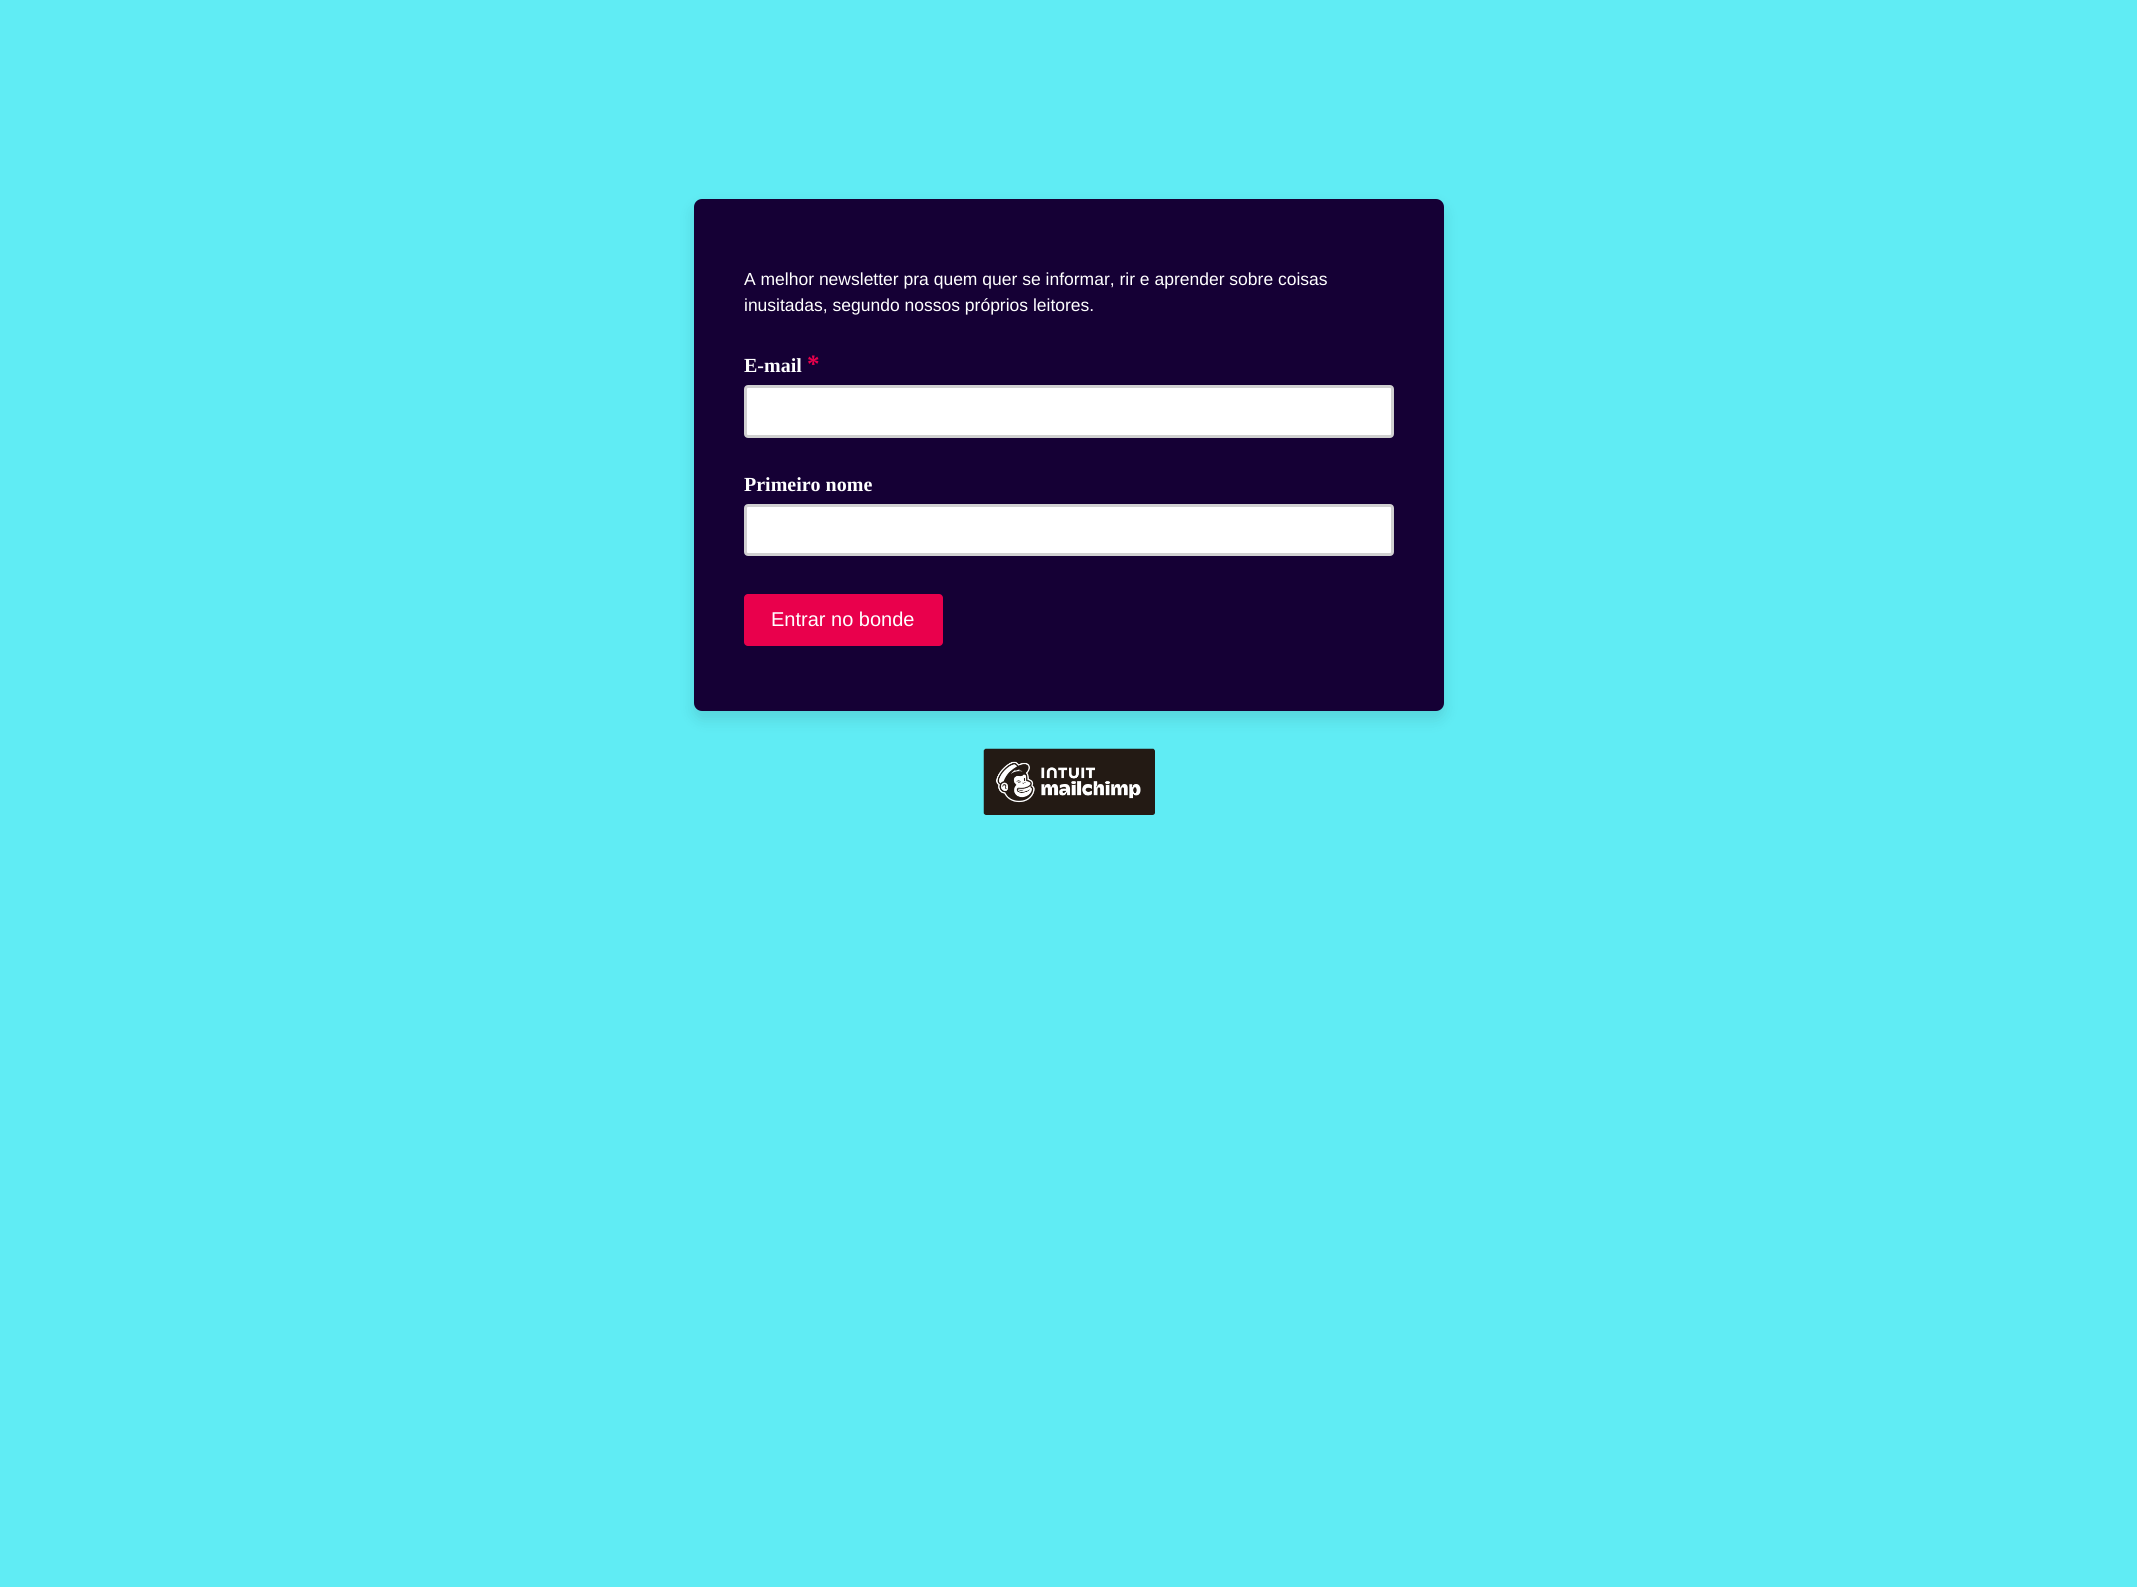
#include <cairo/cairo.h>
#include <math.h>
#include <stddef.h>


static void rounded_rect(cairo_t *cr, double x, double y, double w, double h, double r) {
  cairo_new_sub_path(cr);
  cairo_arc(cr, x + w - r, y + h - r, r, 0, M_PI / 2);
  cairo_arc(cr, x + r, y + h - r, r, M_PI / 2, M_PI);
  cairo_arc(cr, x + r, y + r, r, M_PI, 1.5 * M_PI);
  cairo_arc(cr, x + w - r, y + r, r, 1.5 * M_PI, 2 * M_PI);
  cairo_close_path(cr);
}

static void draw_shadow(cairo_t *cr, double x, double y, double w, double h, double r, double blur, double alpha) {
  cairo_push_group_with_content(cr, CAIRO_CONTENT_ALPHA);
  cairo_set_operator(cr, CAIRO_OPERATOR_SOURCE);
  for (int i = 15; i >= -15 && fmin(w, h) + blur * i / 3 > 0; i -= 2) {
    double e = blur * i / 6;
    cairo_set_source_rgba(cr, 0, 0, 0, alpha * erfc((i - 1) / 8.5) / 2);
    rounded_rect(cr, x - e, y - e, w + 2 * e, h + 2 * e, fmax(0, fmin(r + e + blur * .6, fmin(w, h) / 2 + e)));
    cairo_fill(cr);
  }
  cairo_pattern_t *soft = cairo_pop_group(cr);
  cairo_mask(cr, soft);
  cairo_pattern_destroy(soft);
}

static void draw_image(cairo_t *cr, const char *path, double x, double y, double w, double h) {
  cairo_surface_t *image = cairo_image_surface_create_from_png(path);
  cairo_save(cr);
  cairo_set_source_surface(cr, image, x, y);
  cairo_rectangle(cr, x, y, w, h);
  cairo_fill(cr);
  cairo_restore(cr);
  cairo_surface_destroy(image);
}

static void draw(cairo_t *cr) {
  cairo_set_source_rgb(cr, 96 / 255.0, 236 / 255.0, 244 / 255.0);
  cairo_paint(cr);
  cairo_set_source_rgb(cr, 13 / 255.0, 18 / 255.0, 22 / 255.0);
  draw_shadow(cr, 694, 206, 750, 513, 8, 7.5, 0.12);
  cairo_set_source_rgb(cr, 21 / 255.0, 0, 53 / 255.0);
  rounded_rect(cr, 694, 199, 750, 512, 8);
  cairo_fill(cr);
  cairo_set_source_rgb(cr, 1, 1, 1);
  rounded_rect(cr, 745.5, 386.5, 647, 50, 2.5);
  cairo_fill_preserve(cr);
  cairo_set_source_rgb(cr, 208 / 255.0, 208 / 255.0, 208 / 255.0);
  cairo_set_line_width(cr, 3);
  cairo_stroke(cr);
  cairo_set_source_rgb(cr, 1, 1, 1);
  rounded_rect(cr, 745.5, 505.5, 647, 49, 2.5);
  cairo_fill_preserve(cr);
  cairo_set_source_rgb(cr, 208 / 255.0, 208 / 255.0, 208 / 255.0);
  cairo_stroke(cr);
  cairo_set_source_rgb(cr, 233 / 255.0, 0, 76 / 255.0);
  rounded_rect(cr, 744, 594, 199, 52, 4);
  cairo_fill(cr);
  draw_image(cr, "images/1.png", 983, 748, 172, 67);
  cairo_select_font_face(cr, "Liberation Sans", CAIRO_FONT_SLANT_NORMAL, CAIRO_FONT_WEIGHT_NORMAL);
  cairo_set_font_size(cr, 17.5);
  cairo_set_source_rgb(cr, 1, 1, 1);
  cairo_move_to(cr, 744, 285);
  cairo_show_text(cr, "A melhor newsletter pra quem quer se informar, rir e aprender sobre coisas");
  cairo_move_to(cr, 744, 311);
  cairo_show_text(cr, "inusitadas, segundo nossos próprios leitores.");
  cairo_select_font_face(cr, "Liberation Serif", CAIRO_FONT_SLANT_NORMAL, CAIRO_FONT_WEIGHT_BOLD);
  cairo_set_font_size(cr, 20);
  cairo_move_to(cr, 744, 372);
  cairo_show_text(cr, "E-mail");
  cairo_set_font_size(cr, 25);
  cairo_set_source_rgb(cr, 233 / 255.0, 0, 76 / 255.0);
  cairo_move_to(cr, 807, 372);
  cairo_show_text(cr, "*");
  cairo_set_font_size(cr, 20);
  cairo_set_source_rgb(cr, 1, 1, 1);
  cairo_move_to(cr, 744, 491);
  cairo_show_text(cr, "Primeiro nome");
  cairo_select_font_face(cr, "Liberation Sans", CAIRO_FONT_SLANT_NORMAL, CAIRO_FONT_WEIGHT_NORMAL);
  cairo_move_to(cr, 771, 626);
  cairo_show_text(cr, "Entrar no bonde");
}

int main(void) {
  cairo_surface_t *surface = cairo_image_surface_create(CAIRO_FORMAT_RGB24, 2137, 1587);
  cairo_t *cr = cairo_create(surface);
  cairo_font_options_t *options = cairo_font_options_create();
  cairo_font_options_set_hint_metrics(options, CAIRO_HINT_METRICS_OFF);
  cairo_font_options_set_hint_style(options, CAIRO_HINT_STYLE_NONE);
  cairo_set_font_options(cr, options);
  cairo_set_miter_limit(cr, 4);
  draw(cr);
  cairo_surface_write_to_png(surface, "out.png");
  cairo_font_options_destroy(options);
  cairo_destroy(cr);
  cairo_surface_destroy(surface);
  return 0;
}
